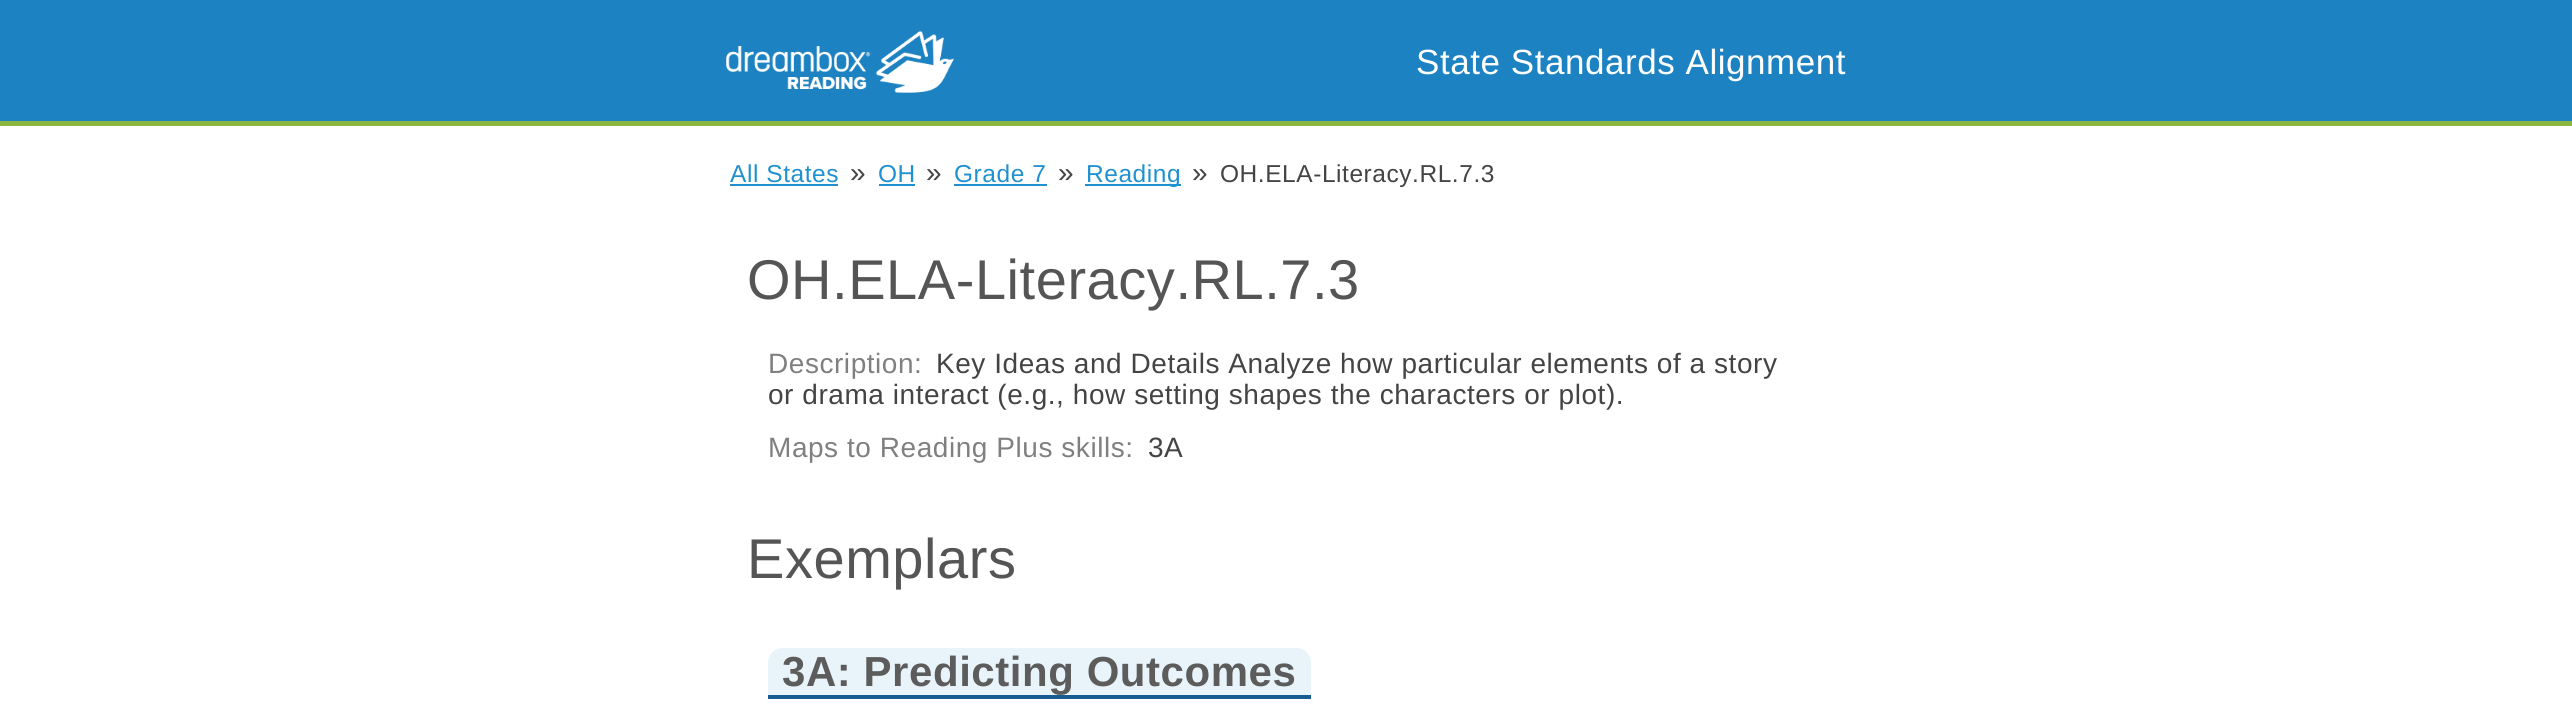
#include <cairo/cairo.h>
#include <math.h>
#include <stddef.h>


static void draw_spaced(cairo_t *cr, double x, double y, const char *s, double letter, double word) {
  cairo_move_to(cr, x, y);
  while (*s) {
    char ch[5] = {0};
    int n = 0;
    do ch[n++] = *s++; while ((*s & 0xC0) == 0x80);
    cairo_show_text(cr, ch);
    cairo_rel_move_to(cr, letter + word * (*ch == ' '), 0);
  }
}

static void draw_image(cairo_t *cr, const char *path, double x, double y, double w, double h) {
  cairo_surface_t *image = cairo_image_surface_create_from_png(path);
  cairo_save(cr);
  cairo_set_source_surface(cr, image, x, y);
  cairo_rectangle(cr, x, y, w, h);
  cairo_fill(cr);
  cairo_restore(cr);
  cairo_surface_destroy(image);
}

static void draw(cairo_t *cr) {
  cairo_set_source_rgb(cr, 1, 1, 1);
  cairo_paint(cr);
  cairo_set_source_rgb(cr, 29 / 255.0, 130 / 255.0, 193 / 255.0);
  cairo_rectangle(cr, 0, 0, 2572, 121);
  cairo_fill(cr);
  cairo_set_source_rgb(cr, 139 / 255.0, 182 / 255.0, 63 / 255.0);
  cairo_rectangle(cr, 0, 121, 2572, 5);
  cairo_fill(cr);
  draw_image(cr, "images/1.png", 726, 31, 228, 62);
  cairo_set_source_rgb(cr, 32 / 255.0, 145 / 255.0, 208 / 255.0);
  cairo_rectangle(cr, 730, 184, 108, 2);
  cairo_fill(cr);
  cairo_rectangle(cr, 879, 184, 36, 2);
  cairo_fill(cr);
  cairo_rectangle(cr, 954, 184, 93, 2);
  cairo_fill(cr);
  cairo_rectangle(cr, 1085, 184, 96, 2);
  cairo_fill(cr);
  cairo_set_source_rgb(cr, 233 / 255.0, 244 / 255.0, 250 / 255.0);
  cairo_new_path(cr);
  cairo_move_to(cr, 782, 648);
  cairo_line_to(cr, 1297, 648);
  cairo_curve_to(cr, 1304.5, 648, 1311, 654.5, 1311, 662);
  cairo_line_to(cr, 1311, 698);
  cairo_line_to(cr, 768, 698);
  cairo_line_to(cr, 768, 662);
  cairo_curve_to(cr, 768, 654.5, 774.5, 648, 782, 648);
  cairo_close_path(cr);
  cairo_fill(cr);
  cairo_set_source_rgb(cr, 24 / 255.0, 91 / 255.0, 146 / 255.0);
  cairo_rectangle(cr, 768, 695, 543, 4);
  cairo_fill(cr);
  cairo_select_font_face(cr, "Liberation Sans", CAIRO_FONT_SLANT_NORMAL, CAIRO_FONT_WEIGHT_NORMAL);
  cairo_set_font_size(cr, 35);
  cairo_set_source_rgb(cr, 1, 1, 1);
  draw_spaced(cr, 1416, 74, "State Standards Alignment", 0.55, 0);
  cairo_set_font_size(cr, 24.5);
  cairo_set_source_rgb(cr, 32 / 255.0, 145 / 255.0, 208 / 255.0);
  draw_spaced(cr, 730, 182, "All States", 0.55, 0);
  cairo_set_font_size(cr, 28);
  cairo_set_source_rgb(cr, 68 / 255.0, 68 / 255.0, 68 / 255.0);
  draw_spaced(cr, 850, 182, "»", 0.55, 0);
  cairo_set_font_size(cr, 24.5);
  cairo_set_source_rgb(cr, 32 / 255.0, 145 / 255.0, 208 / 255.0);
  draw_spaced(cr, 878, 182, "OH", 0.55, 0);
  cairo_set_font_size(cr, 28);
  cairo_set_source_rgb(cr, 68 / 255.0, 68 / 255.0, 68 / 255.0);
  draw_spaced(cr, 926, 182, "»", 0.55, 0);
  cairo_set_font_size(cr, 24.5);
  cairo_set_source_rgb(cr, 32 / 255.0, 145 / 255.0, 208 / 255.0);
  draw_spaced(cr, 954, 182, "Grade 7", 0.55, 0);
  cairo_set_font_size(cr, 28);
  cairo_set_source_rgb(cr, 68 / 255.0, 68 / 255.0, 68 / 255.0);
  draw_spaced(cr, 1058, 182, "»", 0.55, 0);
  cairo_set_font_size(cr, 24.5);
  cairo_set_source_rgb(cr, 32 / 255.0, 145 / 255.0, 208 / 255.0);
  draw_spaced(cr, 1086, 182, "Reading", 0.55, 0);
  cairo_set_font_size(cr, 28);
  cairo_set_source_rgb(cr, 68 / 255.0, 68 / 255.0, 68 / 255.0);
  draw_spaced(cr, 1192, 182, "»", 0.55, 0);
  cairo_set_font_size(cr, 24.5);
  draw_spaced(cr, 1220, 182, "OH.ELA-Literacy.RL.7.3", 0.55, 0);
  cairo_set_font_size(cr, 56);
  cairo_set_source_rgb(cr, 85 / 255.0, 85 / 255.0, 85 / 255.0);
  draw_spaced(cr, 747, 299, "OH.ELA-Literacy.RL.7.3", 0.55, 0);
  cairo_set_font_size(cr, 28);
  cairo_set_source_rgb(cr, 128 / 255.0, 128 / 255.0, 128 / 255.0);
  draw_spaced(cr, 768, 373, "Description:", 0.55, 0);
  cairo_set_source_rgb(cr, 68 / 255.0, 68 / 255.0, 68 / 255.0);
  draw_spaced(cr, 936, 373, "Key Ideas and Details Analyze how particular elements of a story", 0.55, 0);
  draw_spaced(cr, 768, 404, "or drama interact (e.g., how setting shapes the characters or plot).", 0.55, 0);
  cairo_set_source_rgb(cr, 128 / 255.0, 128 / 255.0, 128 / 255.0);
  draw_spaced(cr, 768, 457, "Maps to Reading Plus skills:", 0.55, 0);
  cairo_set_source_rgb(cr, 68 / 255.0, 68 / 255.0, 68 / 255.0);
  draw_spaced(cr, 1148, 457, "3A", 0.55, 0);
  cairo_set_font_size(cr, 56);
  cairo_set_source_rgb(cr, 85 / 255.0, 85 / 255.0, 85 / 255.0);
  draw_spaced(cr, 747, 578, "Exemplars", 0.55, 0);
  cairo_select_font_face(cr, "Liberation Sans", CAIRO_FONT_SLANT_NORMAL, CAIRO_FONT_WEIGHT_BOLD);
  cairo_set_font_size(cr, 42);
  cairo_set_source_rgb(cr, 92 / 255.0, 92 / 255.0, 92 / 255.0);
  draw_spaced(cr, 782, 686, "3A: Predicting Outcomes", 0.55, 0);
}

int main(void) {
  cairo_surface_t *surface = cairo_image_surface_create(CAIRO_FORMAT_RGB24, 2572, 725);
  cairo_t *cr = cairo_create(surface);
  cairo_font_options_t *options = cairo_font_options_create();
  cairo_font_options_set_hint_metrics(options, CAIRO_HINT_METRICS_OFF);
  cairo_font_options_set_hint_style(options, CAIRO_HINT_STYLE_NONE);
  cairo_set_font_options(cr, options);
  cairo_set_miter_limit(cr, 4);
  draw(cr);
  cairo_surface_write_to_png(surface, "out.png");
  cairo_font_options_destroy(options);
  cairo_destroy(cr);
  cairo_surface_destroy(surface);
  return 0;
}
